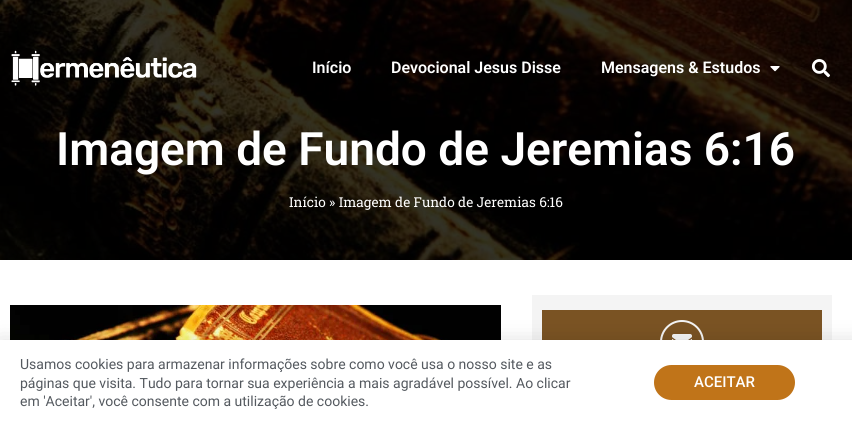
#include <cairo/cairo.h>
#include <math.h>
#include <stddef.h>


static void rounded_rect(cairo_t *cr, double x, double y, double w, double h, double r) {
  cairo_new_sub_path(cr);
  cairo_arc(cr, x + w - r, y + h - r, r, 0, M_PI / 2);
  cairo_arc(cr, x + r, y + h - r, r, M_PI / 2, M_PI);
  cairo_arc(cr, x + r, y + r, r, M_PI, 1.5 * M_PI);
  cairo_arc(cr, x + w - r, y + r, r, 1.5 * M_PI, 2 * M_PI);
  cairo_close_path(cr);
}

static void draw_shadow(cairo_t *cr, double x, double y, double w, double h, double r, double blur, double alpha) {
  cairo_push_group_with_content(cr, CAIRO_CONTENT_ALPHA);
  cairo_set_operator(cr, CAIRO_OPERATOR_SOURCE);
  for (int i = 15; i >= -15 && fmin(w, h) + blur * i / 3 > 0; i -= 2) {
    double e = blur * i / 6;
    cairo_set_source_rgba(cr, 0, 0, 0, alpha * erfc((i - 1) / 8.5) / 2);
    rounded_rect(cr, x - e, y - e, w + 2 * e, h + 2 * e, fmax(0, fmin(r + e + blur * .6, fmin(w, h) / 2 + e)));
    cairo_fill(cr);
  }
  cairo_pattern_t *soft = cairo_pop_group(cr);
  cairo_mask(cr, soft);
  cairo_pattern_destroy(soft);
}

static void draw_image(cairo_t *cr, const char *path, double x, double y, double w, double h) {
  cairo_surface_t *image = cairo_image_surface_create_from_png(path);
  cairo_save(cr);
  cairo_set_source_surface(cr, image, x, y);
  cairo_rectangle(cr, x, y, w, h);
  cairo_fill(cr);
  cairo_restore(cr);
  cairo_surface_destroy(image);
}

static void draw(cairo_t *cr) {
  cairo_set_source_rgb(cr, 1, 1, 1);
  cairo_paint(cr);
  draw_image(cr, "images/1.png", 0, 0, 852, 260);
  draw_image(cr, "images/2.png", 11, 50, 186, 36);
  draw_image(cr, "images/3.png", 770, 66, 10, 6);
  draw_image(cr, "images/4.png", 811, 59, 19, 19);
  draw_image(cr, "images/5.png", 10, 305, 491, 35);
  cairo_set_source_rgb(cr, 244 / 255.0, 244 / 255.0, 244 / 255.0);
  cairo_rectangle(cr, 532, 295, 300, 45);
  cairo_fill(cr);
  cairo_set_source_rgb(cr, 122 / 255.0, 83 / 255.0, 35 / 255.0);
  cairo_rectangle(cr, 542, 310, 280, 30);
  cairo_fill(cr);
  cairo_arc(cr, 682, 342, 21, 0, 2 * M_PI);
  cairo_set_source_rgb(cr, 244 / 255.0, 244 / 255.0, 244 / 255.0);
  cairo_stroke(cr);
  draw_image(cr, "images/6.png", 672, 334, 20, 6);
  cairo_set_source_rgb(cr, 0, 0, 0);
  draw_shadow(cr, -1, 345, 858, 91, 0, 11.5, 0.2);
  cairo_set_source_rgb(cr, 1, 1, 1);
  cairo_rectangle(cr, 0, 340, 852, 85);
  cairo_fill(cr);
  cairo_set_source_rgb(cr, 192 / 255.0, 116 / 255.0, 25 / 255.0);
  rounded_rect(cr, 654, 365, 141, 35, 17.5);
  cairo_fill(cr);
  cairo_select_font_face(cr, "Roboto SemiBold", CAIRO_FONT_SLANT_NORMAL, CAIRO_FONT_WEIGHT_NORMAL);
  cairo_set_font_size(cr, 16);
  cairo_set_source_rgb(cr, 1, 1, 1);
  cairo_move_to(cr, 312, 73);
  cairo_show_text(cr, "Início");
  cairo_move_to(cr, 391, 73);
  cairo_show_text(cr, "Devocional Jesus Disse");
  cairo_move_to(cr, 601, 73);
  cairo_show_text(cr, "Mensagens & Estudos");
  cairo_set_font_size(cr, 46);
  cairo_move_to(cr, 56, 165);
  cairo_show_text(cr, "Imagem de Fundo de Jeremias 6:16");
  cairo_select_font_face(cr, "Roboto Slab", CAIRO_FONT_SLANT_NORMAL, CAIRO_FONT_WEIGHT_NORMAL);
  cairo_set_font_size(cr, 13.6);
  cairo_move_to(cr, 289, 207);
  cairo_show_text(cr, "Início » Imagem de Fundo de Jeremias 6:16");
  cairo_select_font_face(cr, "Roboto", CAIRO_FONT_SLANT_NORMAL, CAIRO_FONT_WEIGHT_NORMAL);
  cairo_set_font_size(cr, 14);
  cairo_set_source_rgb(cr, 84 / 255.0, 89 / 255.0, 95 / 255.0);
  cairo_move_to(cr, 20, 369);
  cairo_show_text(cr, "Usamos cookies para armazenar informações sobre como você usa o nosso site e as");
  cairo_move_to(cr, 20, 388);
  cairo_show_text(cr, "páginas que visita. Tudo para tornar sua experiência a mais agradável possível. Ao clicar");
  cairo_move_to(cr, 20, 406);
  cairo_show_text(cr, "em 'Aceitar', você consente com a utilização de cookies.");
  cairo_select_font_face(cr, "Roboto Medium", CAIRO_FONT_SLANT_NORMAL, CAIRO_FONT_WEIGHT_NORMAL);
  cairo_set_font_size(cr, 15);
  cairo_set_source_rgb(cr, 1, 1, 1);
  cairo_move_to(cr, 694, 387);
  cairo_show_text(cr, "ACEITAR");
}

int main(void) {
  cairo_surface_t *surface = cairo_image_surface_create(CAIRO_FORMAT_RGB24, 852, 425);
  cairo_t *cr = cairo_create(surface);
  cairo_font_options_t *options = cairo_font_options_create();
  cairo_font_options_set_hint_metrics(options, CAIRO_HINT_METRICS_OFF);
  cairo_font_options_set_hint_style(options, CAIRO_HINT_STYLE_NONE);
  cairo_set_font_options(cr, options);
  cairo_set_miter_limit(cr, 4);
  draw(cr);
  cairo_surface_write_to_png(surface, "out.png");
  cairo_font_options_destroy(options);
  cairo_destroy(cr);
  cairo_surface_destroy(surface);
  return 0;
}
